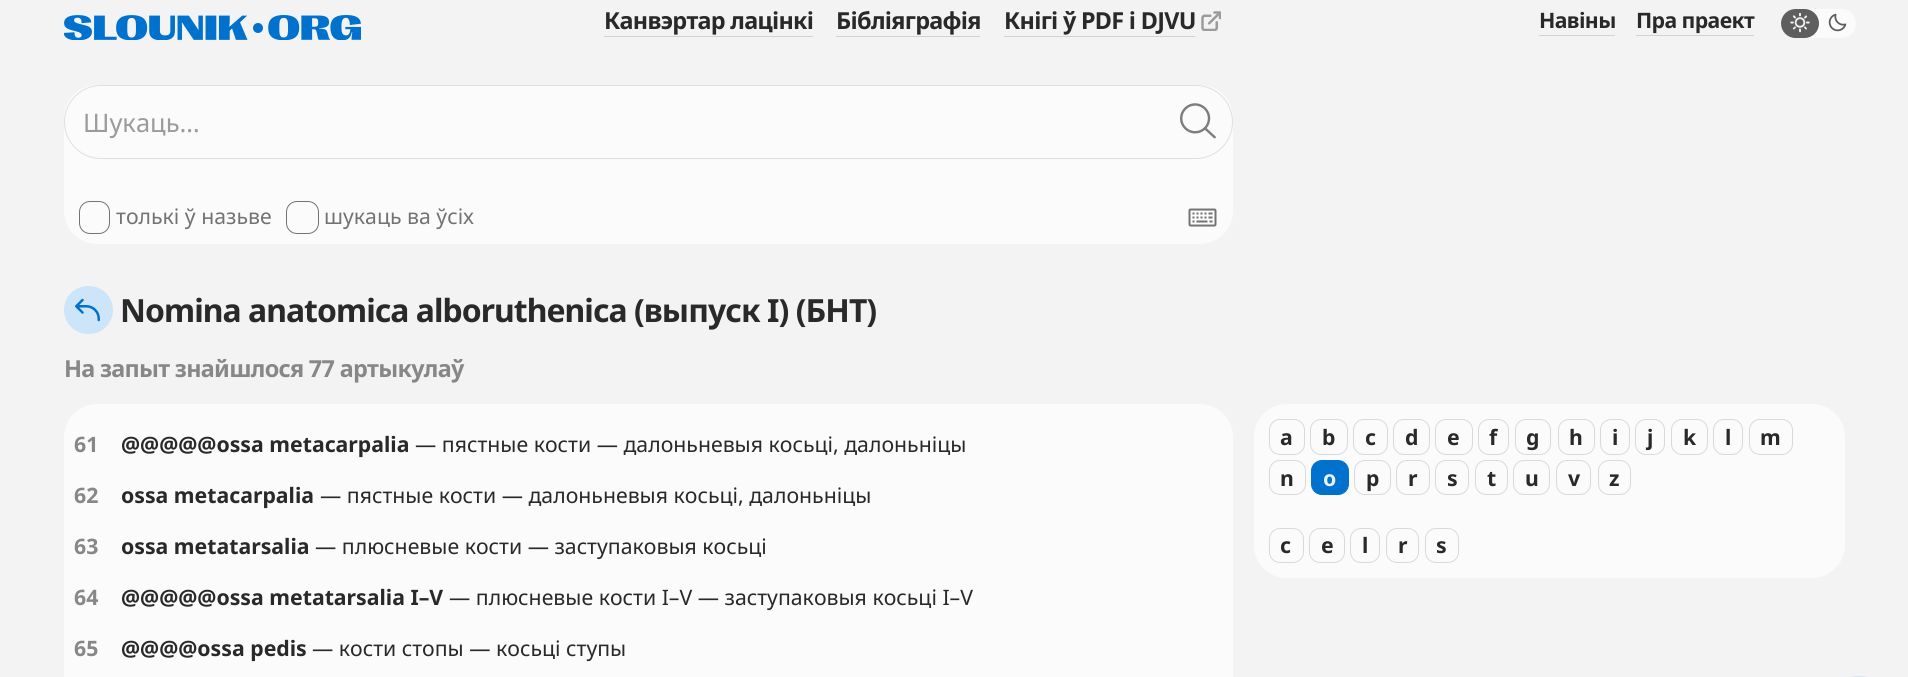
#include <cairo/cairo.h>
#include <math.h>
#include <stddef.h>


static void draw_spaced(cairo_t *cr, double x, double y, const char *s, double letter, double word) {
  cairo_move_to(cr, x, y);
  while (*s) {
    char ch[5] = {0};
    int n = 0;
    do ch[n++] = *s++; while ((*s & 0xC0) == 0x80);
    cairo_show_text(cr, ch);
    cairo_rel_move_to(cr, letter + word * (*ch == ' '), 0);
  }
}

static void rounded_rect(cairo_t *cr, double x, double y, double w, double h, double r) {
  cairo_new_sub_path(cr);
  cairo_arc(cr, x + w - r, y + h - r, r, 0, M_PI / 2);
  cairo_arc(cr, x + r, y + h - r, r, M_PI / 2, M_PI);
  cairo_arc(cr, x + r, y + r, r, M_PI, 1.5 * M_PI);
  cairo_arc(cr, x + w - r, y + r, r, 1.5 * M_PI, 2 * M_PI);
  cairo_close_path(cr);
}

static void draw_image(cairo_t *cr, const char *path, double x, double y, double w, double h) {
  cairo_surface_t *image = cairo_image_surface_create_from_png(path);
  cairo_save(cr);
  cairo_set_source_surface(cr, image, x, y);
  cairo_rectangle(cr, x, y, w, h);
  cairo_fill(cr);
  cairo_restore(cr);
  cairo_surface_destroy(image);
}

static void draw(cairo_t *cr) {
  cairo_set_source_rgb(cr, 243 / 255.0, 243 / 255.0, 243 / 255.0);
  cairo_paint(cr);
  draw_image(cr, "images/1.png", 64, 15, 297, 25);
  cairo_set_source_rgb(cr, 210 / 255.0, 210 / 255.0, 210 / 255.0);
  cairo_rectangle(cr, 604, 36, 209, 1);
  cairo_fill(cr);
  cairo_rectangle(cr, 836, 36, 144, 1);
  cairo_fill(cr);
  cairo_rectangle(cr, 1004, 36, 191, 1);
  cairo_fill(cr);
  draw_image(cr, "images/2.png", 1201, 11, 20, 20);
  cairo_rectangle(cr, 1539, 35, 76, 1);
  cairo_fill(cr);
  cairo_rectangle(cr, 1636, 35, 118, 1);
  cairo_fill(cr);
  cairo_set_source_rgb(cr, 251 / 255.0, 251 / 255.0, 251 / 255.0);
  rounded_rect(cr, 1781, 9, 75, 29, 14.5);
  cairo_fill(cr);
  cairo_set_source_rgb(cr, 94 / 255.0, 94 / 255.0, 94 / 255.0);
  rounded_rect(cr, 1781, 9, 38, 29, 14.5);
  cairo_fill(cr);
  draw_image(cr, "images/3.png", 1790, 13, 20, 20);
  draw_image(cr, "images/4.png", 1828, 13, 19, 19);
  cairo_set_source_rgb(cr, 251 / 255.0, 251 / 255.0, 251 / 255.0);
  rounded_rect(cr, 64, 85, 1169, 159, 33);
  cairo_fill(cr);
  rounded_rect(cr, 64.5, 85.5, 1168, 73, 36.5);
  cairo_set_source_rgb(cr, 223 / 255.0, 223 / 255.0, 223 / 255.0);
  cairo_set_line_width(cr, 1);
  cairo_stroke(cr);
  draw_image(cr, "images/5.png", 1180, 103, 36, 36);
  rounded_rect(cr, 79.5, 201.5, 30, 32, 10.5);
  cairo_set_source_rgb(cr, 115 / 255.0, 115 / 255.0, 115 / 255.0);
  cairo_stroke(cr);
  rounded_rect(cr, 286.5, 201.5, 32, 32, 10.5);
  cairo_stroke(cr);
  draw_image(cr, "images/6.png", 1188, 208, 29, 19);
  cairo_set_source_rgb(cr, 205 / 255.0, 229 / 255.0, 248 / 255.0);
  rounded_rect(cr, 64, 286, 49, 48, 24);
  cairo_fill(cr);
  draw_image(cr, "images/7.png", 75, 298, 25, 24);
  cairo_set_source_rgb(cr, 251 / 255.0, 251 / 255.0, 251 / 255.0);
  rounded_rect(cr, 64, 404, 1169, 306, 33);
  cairo_fill(cr);
  rounded_rect(cr, 1254, 404, 591, 174, 33);
  cairo_fill(cr);
  rounded_rect(cr, 1269.5, 419.5, 35, 35, 10.5);
  cairo_set_source_rgb(cr, 217 / 255.0, 217 / 255.0, 217 / 255.0);
  cairo_stroke(cr);
  rounded_rect(cr, 1310.5, 419.5, 37, 35, 10.5);
  cairo_stroke(cr);
  rounded_rect(cr, 1353.5, 419.5, 34, 35, 10.5);
  cairo_stroke(cr);
  rounded_rect(cr, 1393.5, 419.5, 36, 35, 10.5);
  cairo_stroke(cr);
  rounded_rect(cr, 1435.5, 419.5, 37, 35, 10.5);
  cairo_stroke(cr);
  rounded_rect(cr, 1478.5, 419.5, 30, 35, 10.5);
  cairo_stroke(cr);
  rounded_rect(cr, 1515.5, 419.5, 35, 35, 10.5);
  cairo_stroke(cr);
  rounded_rect(cr, 1558.5, 419.5, 36, 35, 10.5);
  cairo_stroke(cr);
  rounded_rect(cr, 1600.5, 419.5, 29, 35, 10.5);
  cairo_stroke(cr);
  rounded_rect(cr, 1635.5, 419.5, 29, 35, 10.5);
  cairo_stroke(cr);
  rounded_rect(cr, 1671.5, 419.5, 36, 35, 10.5);
  cairo_stroke(cr);
  rounded_rect(cr, 1713.5, 419.5, 29, 35, 10.5);
  cairo_stroke(cr);
  rounded_rect(cr, 1749.5, 419.5, 43, 35, 10.5);
  cairo_stroke(cr);
  rounded_rect(cr, 1269.5, 460.5, 36, 34, 10.5);
  cairo_stroke(cr);
  cairo_set_source_rgb(cr, 0, 114 / 255.0, 206 / 255.0);
  rounded_rect(cr, 1311.5, 460.5, 37, 34, 10.5);
  cairo_fill_preserve(cr);
  cairo_stroke(cr);
  rounded_rect(cr, 1354.5, 460.5, 36, 34, 10.5);
  cairo_set_source_rgb(cr, 217 / 255.0, 217 / 255.0, 217 / 255.0);
  cairo_stroke(cr);
  rounded_rect(cr, 1396.5, 460.5, 33, 34, 10.5);
  cairo_stroke(cr);
  rounded_rect(cr, 1435.5, 460.5, 33, 34, 10.5);
  cairo_stroke(cr);
  rounded_rect(cr, 1475.5, 460.5, 32, 34, 10.5);
  cairo_stroke(cr);
  rounded_rect(cr, 1513.5, 460.5, 36, 34, 10.5);
  cairo_stroke(cr);
  rounded_rect(cr, 1556.5, 460.5, 34, 34, 10.5);
  cairo_stroke(cr);
  rounded_rect(cr, 1598.5, 460.5, 32, 34, 10.5);
  cairo_stroke(cr);
  rounded_rect(cr, 1269.5, 528.5, 34, 34, 10.5);
  cairo_stroke(cr);
  rounded_rect(cr, 1309.5, 528.5, 35, 34, 10.5);
  cairo_stroke(cr);
  rounded_rect(cr, 1350.5, 528.5, 29, 34, 10.5);
  cairo_stroke(cr);
  rounded_rect(cr, 1386.5, 528.5, 32, 34, 10.5);
  cairo_stroke(cr);
  rounded_rect(cr, 1425.5, 528.5, 33, 34, 10.5);
  cairo_stroke(cr);
  cairo_set_source_rgb(cr, 205 / 255.0, 229 / 255.0, 248 / 255.0);
  rounded_rect(cr, 1824, 676, 70, 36, 35);
  cairo_fill(cr);
  cairo_select_font_face(cr, "Noto Sans", CAIRO_FONT_SLANT_NORMAL, CAIRO_FONT_WEIGHT_BOLD);
  cairo_set_font_size(cr, 23.4);
  cairo_set_source_rgb(cr, 41 / 255.0, 41 / 255.0, 41 / 255.0);
  draw_spaced(cr, 604, 29, "Канвэртар лацінкі", -0.7, 0);
  draw_spaced(cr, 836, 29, "Бібліяграфія", -0.7, 0);
  draw_spaced(cr, 1004, 29, "Кнігі ў PDF і DJVU", -0.7, 0);
  cairo_set_font_size(cr, 21.25);
  draw_spaced(cr, 1539, 28, "Навіны", -0.6, 0);
  draw_spaced(cr, 1636, 28, "Пра праект", -0.6, 0);
  cairo_select_font_face(cr, "Noto Sans", CAIRO_FONT_SLANT_NORMAL, CAIRO_FONT_WEIGHT_NORMAL);
  cairo_set_font_size(cr, 25.5);
  cairo_set_source_rgb(cr, 155 / 255.0, 155 / 255.0, 155 / 255.0);
  cairo_move_to(cr, 83, 132);
  cairo_show_text(cr, "Шукаць…");
  cairo_set_font_size(cr, 21.25);
  cairo_set_source_rgb(cr, 115 / 255.0, 115 / 255.0, 115 / 255.0);
  cairo_move_to(cr, 116, 224);
  cairo_show_text(cr, "толькі ў назьве");
  cairo_move_to(cr, 324, 224);
  cairo_show_text(cr, "шукаць ва ўсіх");
  cairo_select_font_face(cr, "Noto Sans", CAIRO_FONT_SLANT_NORMAL, CAIRO_FONT_WEIGHT_BOLD);
  cairo_set_font_size(cr, 31.9);
  cairo_set_source_rgb(cr, 41 / 255.0, 41 / 255.0, 41 / 255.0);
  draw_spaced(cr, 120, 322, "Nomina anatomica alboruthenica (выпуск I) (БНТ)", -0.95, 0);
  cairo_set_font_size(cr, 23.4);
  cairo_set_source_rgb(cr, 135 / 255.0, 135 / 255.0, 135 / 255.0);
  draw_spaced(cr, 64, 377, "На запыт знайшлося 77 артыкулаў", -0.7, 0);
  cairo_set_font_size(cr, 21.25);
  cairo_move_to(cr, 74, 452);
  cairo_show_text(cr, "61");
  cairo_set_source_rgb(cr, 41 / 255.0, 41 / 255.0, 41 / 255.0);
  cairo_move_to(cr, 121, 452);
  cairo_show_text(cr, "@@@@@ossa metacarpalia");
  cairo_select_font_face(cr, "Noto Sans", CAIRO_FONT_SLANT_NORMAL, CAIRO_FONT_WEIGHT_NORMAL);
  cairo_move_to(cr, 415, 452);
  cairo_show_text(cr, "— пястные кости — далоньневыя косьці, далоньніцы");
  cairo_select_font_face(cr, "Noto Sans", CAIRO_FONT_SLANT_NORMAL, CAIRO_FONT_WEIGHT_BOLD);
  cairo_set_source_rgb(cr, 135 / 255.0, 135 / 255.0, 135 / 255.0);
  cairo_move_to(cr, 74, 503);
  cairo_show_text(cr, "62");
  cairo_set_source_rgb(cr, 41 / 255.0, 41 / 255.0, 41 / 255.0);
  cairo_move_to(cr, 121, 503);
  cairo_show_text(cr, "ossa metacarpalia");
  cairo_select_font_face(cr, "Noto Sans", CAIRO_FONT_SLANT_NORMAL, CAIRO_FONT_WEIGHT_NORMAL);
  cairo_move_to(cr, 320, 503);
  cairo_show_text(cr, "— пястные кости — далоньневыя косьці, далоньніцы");
  cairo_select_font_face(cr, "Noto Sans", CAIRO_FONT_SLANT_NORMAL, CAIRO_FONT_WEIGHT_BOLD);
  cairo_set_source_rgb(cr, 135 / 255.0, 135 / 255.0, 135 / 255.0);
  cairo_move_to(cr, 74, 554);
  cairo_show_text(cr, "63");
  cairo_set_source_rgb(cr, 41 / 255.0, 41 / 255.0, 41 / 255.0);
  cairo_move_to(cr, 121, 554);
  cairo_show_text(cr, "ossa metatarsalia");
  cairo_select_font_face(cr, "Noto Sans", CAIRO_FONT_SLANT_NORMAL, CAIRO_FONT_WEIGHT_NORMAL);
  cairo_move_to(cr, 315, 554);
  cairo_show_text(cr, "— плюсневые кости — заступаковыя косьці");
  cairo_select_font_face(cr, "Noto Sans", CAIRO_FONT_SLANT_NORMAL, CAIRO_FONT_WEIGHT_BOLD);
  cairo_set_source_rgb(cr, 135 / 255.0, 135 / 255.0, 135 / 255.0);
  cairo_move_to(cr, 74, 605);
  cairo_show_text(cr, "64");
  cairo_set_source_rgb(cr, 41 / 255.0, 41 / 255.0, 41 / 255.0);
  cairo_move_to(cr, 121, 605);
  cairo_show_text(cr, "@@@@@ossa metatarsalia I–V");
  cairo_select_font_face(cr, "Noto Sans", CAIRO_FONT_SLANT_NORMAL, CAIRO_FONT_WEIGHT_NORMAL);
  cairo_move_to(cr, 449, 605);
  cairo_show_text(cr, "— плюсневые кости I–V — заступаковыя косьці I–V");
  cairo_select_font_face(cr, "Noto Sans", CAIRO_FONT_SLANT_NORMAL, CAIRO_FONT_WEIGHT_BOLD);
  cairo_set_source_rgb(cr, 135 / 255.0, 135 / 255.0, 135 / 255.0);
  cairo_move_to(cr, 74, 656);
  cairo_show_text(cr, "65");
  cairo_set_source_rgb(cr, 41 / 255.0, 41 / 255.0, 41 / 255.0);
  cairo_move_to(cr, 121, 656);
  cairo_show_text(cr, "@@@@ossa pedis");
  cairo_select_font_face(cr, "Noto Sans", CAIRO_FONT_SLANT_NORMAL, CAIRO_FONT_WEIGHT_NORMAL);
  cairo_move_to(cr, 312, 656);
  cairo_show_text(cr, "— кости стопы — косьці ступы");
  cairo_select_font_face(cr, "Noto Sans", CAIRO_FONT_SLANT_NORMAL, CAIRO_FONT_WEIGHT_BOLD);
  cairo_move_to(cr, 1280, 445);
  cairo_show_text(cr, "a");
  cairo_move_to(cr, 1322, 445);
  cairo_show_text(cr, "b");
  cairo_move_to(cr, 1365, 445);
  cairo_show_text(cr, "c");
  cairo_move_to(cr, 1405, 445);
  cairo_show_text(cr, "d");
  cairo_move_to(cr, 1447, 445);
  cairo_show_text(cr, "e");
  cairo_move_to(cr, 1489, 445);
  cairo_show_text(cr, "f");
  cairo_move_to(cr, 1526, 445);
  cairo_show_text(cr, "g");
  cairo_move_to(cr, 1569, 445);
  cairo_show_text(cr, "h");
  cairo_move_to(cr, 1612, 445);
  cairo_show_text(cr, "i");
  cairo_move_to(cr, 1647, 445);
  cairo_show_text(cr, "j");
  cairo_move_to(cr, 1683, 445);
  cairo_show_text(cr, "k");
  cairo_move_to(cr, 1725, 445);
  cairo_show_text(cr, "l");
  cairo_move_to(cr, 1760, 445);
  cairo_show_text(cr, "m");
  cairo_move_to(cr, 1280, 486);
  cairo_show_text(cr, "n");
  cairo_set_source_rgb(cr, 232 / 255.0, 244 / 255.0, 1);
  cairo_move_to(cr, 1323, 486);
  cairo_show_text(cr, "o");
  cairo_set_source_rgb(cr, 41 / 255.0, 41 / 255.0, 41 / 255.0);
  cairo_move_to(cr, 1366, 486);
  cairo_show_text(cr, "p");
  cairo_move_to(cr, 1408, 486);
  cairo_show_text(cr, "r");
  cairo_move_to(cr, 1447, 486);
  cairo_show_text(cr, "s");
  cairo_move_to(cr, 1487, 486);
  cairo_show_text(cr, "t");
  cairo_move_to(cr, 1525, 486);
  cairo_show_text(cr, "u");
  cairo_move_to(cr, 1568, 486);
  cairo_show_text(cr, "v");
  cairo_move_to(cr, 1609, 486);
  cairo_show_text(cr, "z");
  cairo_move_to(cr, 1280, 553);
  cairo_show_text(cr, "c");
  cairo_move_to(cr, 1321, 553);
  cairo_show_text(cr, "e");
  cairo_move_to(cr, 1362, 553);
  cairo_show_text(cr, "l");
  cairo_move_to(cr, 1398, 553);
  cairo_show_text(cr, "r");
  cairo_move_to(cr, 1436, 553);
  cairo_show_text(cr, "s");
}

int main(void) {
  cairo_surface_t *surface = cairo_image_surface_create(CAIRO_FORMAT_RGB24, 1908, 677);
  cairo_t *cr = cairo_create(surface);
  cairo_font_options_t *options = cairo_font_options_create();
  cairo_font_options_set_hint_metrics(options, CAIRO_HINT_METRICS_OFF);
  cairo_font_options_set_hint_style(options, CAIRO_HINT_STYLE_NONE);
  cairo_set_font_options(cr, options);
  cairo_set_miter_limit(cr, 4);
  draw(cr);
  cairo_surface_write_to_png(surface, "out.png");
  cairo_font_options_destroy(options);
  cairo_destroy(cr);
  cairo_surface_destroy(surface);
  return 0;
}
